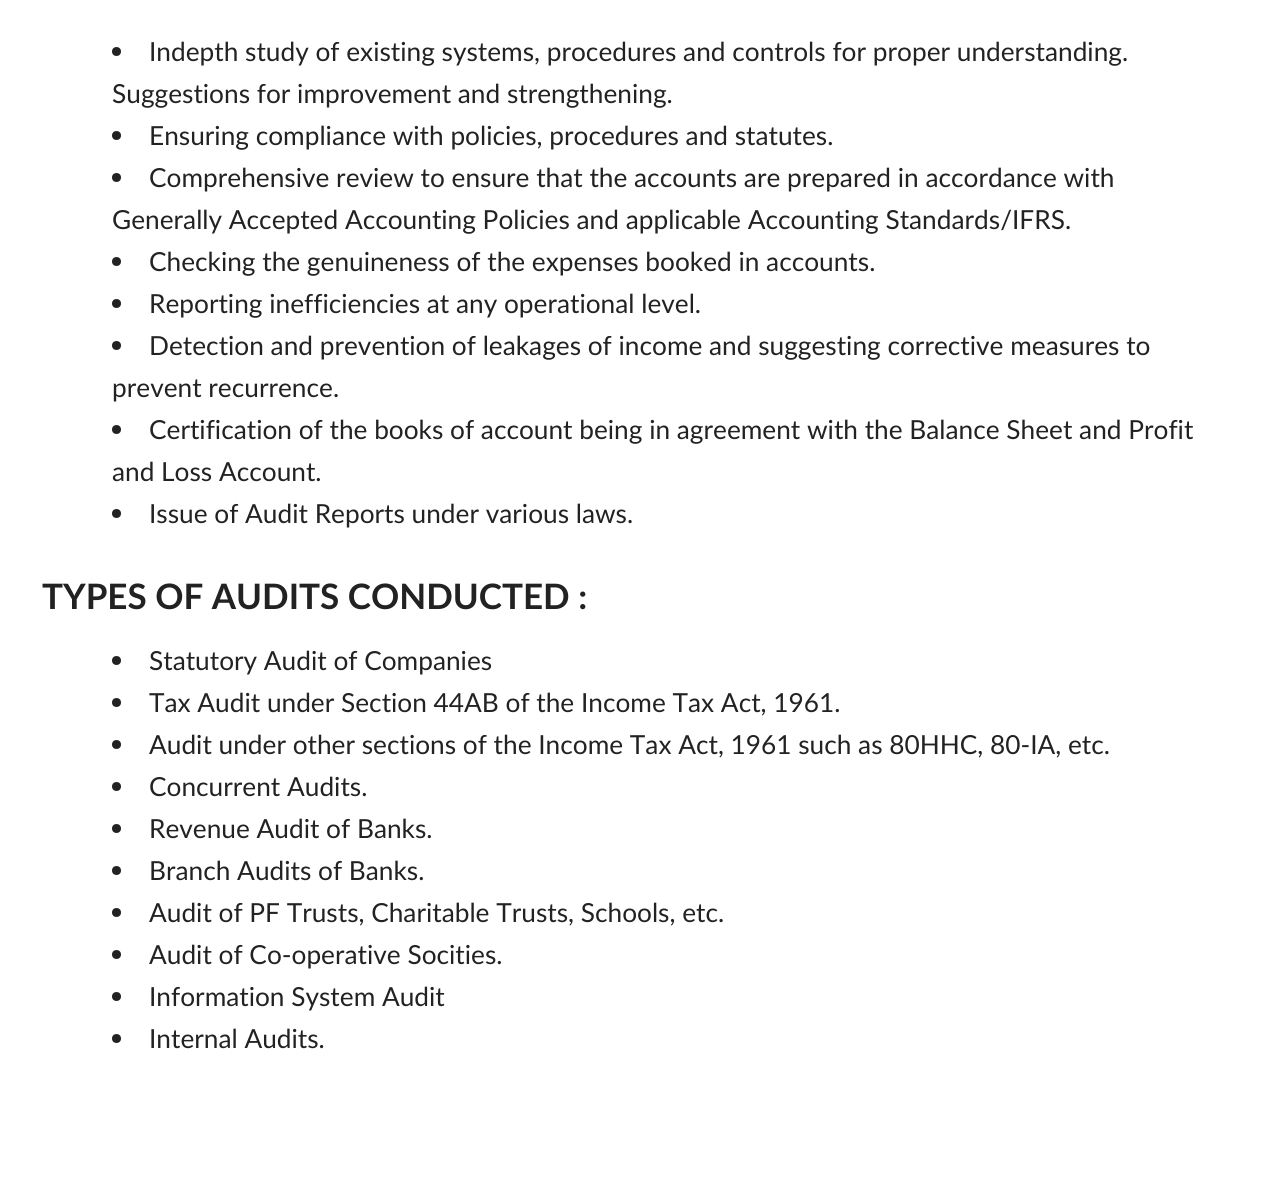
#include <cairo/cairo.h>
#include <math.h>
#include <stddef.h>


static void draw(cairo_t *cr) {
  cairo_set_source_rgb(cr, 1, 1, 1);
  cairo_paint(cr);
  cairo_set_source_rgb(cr, 34 / 255.0, 34 / 255.0, 34 / 255.0);
  cairo_arc(cr, 116.5, 51.5, 4.5, 0, 2 * M_PI);
  cairo_fill(cr);
  cairo_arc(cr, 116.5, 135.5, 4.5, 0, 2 * M_PI);
  cairo_fill(cr);
  cairo_arc(cr, 116.5, 177.5, 4.5, 0, 2 * M_PI);
  cairo_fill(cr);
  cairo_arc(cr, 116.5, 261.5, 4.5, 0, 2 * M_PI);
  cairo_fill(cr);
  cairo_arc(cr, 116.5, 303.5, 4.5, 0, 2 * M_PI);
  cairo_fill(cr);
  cairo_arc(cr, 116.5, 345.5, 4.5, 0, 2 * M_PI);
  cairo_fill(cr);
  cairo_arc(cr, 116.5, 429.5, 4.5, 0, 2 * M_PI);
  cairo_fill(cr);
  cairo_arc(cr, 116.5, 513.5, 4.5, 0, 2 * M_PI);
  cairo_fill(cr);
  cairo_arc(cr, 116.5, 660.5, 4.5, 0, 2 * M_PI);
  cairo_fill(cr);
  cairo_arc(cr, 116.5, 702.5, 4.5, 0, 2 * M_PI);
  cairo_fill(cr);
  cairo_arc(cr, 116.5, 744.5, 4.5, 0, 2 * M_PI);
  cairo_fill(cr);
  cairo_arc(cr, 116.5, 786.5, 4.5, 0, 2 * M_PI);
  cairo_fill(cr);
  cairo_arc(cr, 116.5, 828.5, 4.5, 0, 2 * M_PI);
  cairo_fill(cr);
  cairo_arc(cr, 116.5, 870.5, 4.5, 0, 2 * M_PI);
  cairo_fill(cr);
  cairo_arc(cr, 116.5, 912.5, 4.5, 0, 2 * M_PI);
  cairo_fill(cr);
  cairo_arc(cr, 116.5, 954.5, 4.5, 0, 2 * M_PI);
  cairo_fill(cr);
  cairo_arc(cr, 116.5, 996.5, 4.5, 0, 2 * M_PI);
  cairo_fill(cr);
  cairo_arc(cr, 116.5, 1038.5, 4.5, 0, 2 * M_PI);
  cairo_fill(cr);
  cairo_select_font_face(cr, "Lato", CAIRO_FONT_SLANT_NORMAL, CAIRO_FONT_WEIGHT_NORMAL);
  cairo_set_font_size(cr, 26.25);
  cairo_move_to(cr, 149, 61);
  cairo_show_text(cr, "Indepth study of existing systems, procedures and controls for proper understanding.");
  cairo_move_to(cr, 112, 103);
  cairo_show_text(cr, "Suggestions for improvement and strengthening.");
  cairo_move_to(cr, 149, 145);
  cairo_show_text(cr, "Ensuring compliance with policies, procedures and statutes.");
  cairo_move_to(cr, 149, 187);
  cairo_show_text(cr, "Comprehensive review to ensure that the accounts are prepared in accordance with");
  cairo_move_to(cr, 112, 229);
  cairo_show_text(cr, "Generally Accepted Accounting Policies and applicable Accounting Standards/IFRS.");
  cairo_move_to(cr, 149, 271);
  cairo_show_text(cr, "Checking the genuineness of the expenses booked in accounts.");
  cairo_move_to(cr, 149, 313);
  cairo_show_text(cr, "Reporting inefficiencies at any operational level.");
  cairo_move_to(cr, 149, 355);
  cairo_show_text(cr, "Detection and prevention of leakages of income and suggesting corrective measures to");
  cairo_move_to(cr, 112, 397);
  cairo_show_text(cr, "prevent recurrence.");
  cairo_move_to(cr, 149, 439);
  cairo_show_text(cr, "Certification of the books of account being in agreement with the Balance Sheet and Profit");
  cairo_move_to(cr, 112, 481);
  cairo_show_text(cr, "and Loss Account.");
  cairo_move_to(cr, 149, 523);
  cairo_show_text(cr, "Issue of Audit Reports under various laws.");
  cairo_select_font_face(cr, "Lato", CAIRO_FONT_SLANT_NORMAL, CAIRO_FONT_WEIGHT_BOLD);
  cairo_set_font_size(cr, 35);
  cairo_move_to(cr, 42, 609);
  cairo_show_text(cr, "TYPES OF AUDITS CONDUCTED :");
  cairo_select_font_face(cr, "Lato", CAIRO_FONT_SLANT_NORMAL, CAIRO_FONT_WEIGHT_NORMAL);
  cairo_set_font_size(cr, 26.25);
  cairo_move_to(cr, 149, 670);
  cairo_show_text(cr, "Statutory Audit of Companies");
  cairo_move_to(cr, 149, 712);
  cairo_show_text(cr, "Tax Audit under Section 44AB of the Income Tax Act, 1961.");
  cairo_move_to(cr, 149, 754);
  cairo_show_text(cr, "Audit under other sections of the Income Tax Act, 1961 such as 80HHC, 80-IA, etc.");
  cairo_move_to(cr, 149, 796);
  cairo_show_text(cr, "Concurrent Audits.");
  cairo_move_to(cr, 149, 838);
  cairo_show_text(cr, "Revenue Audit of Banks.");
  cairo_move_to(cr, 149, 880);
  cairo_show_text(cr, "Branch Audits of Banks.");
  cairo_move_to(cr, 149, 922);
  cairo_show_text(cr, "Audit of PF Trusts, Charitable Trusts, Schools, etc.");
  cairo_move_to(cr, 149, 964);
  cairo_show_text(cr, "Audit of Co-operative Socities.");
  cairo_move_to(cr, 149, 1006);
  cairo_show_text(cr, "Information System Audit");
  cairo_move_to(cr, 149, 1048);
  cairo_show_text(cr, "Internal Audits.");
}

int main(void) {
  cairo_surface_t *surface = cairo_image_surface_create(CAIRO_FORMAT_RGB24, 1272, 1180);
  cairo_t *cr = cairo_create(surface);
  cairo_font_options_t *options = cairo_font_options_create();
  cairo_font_options_set_hint_metrics(options, CAIRO_HINT_METRICS_OFF);
  cairo_font_options_set_hint_style(options, CAIRO_HINT_STYLE_NONE);
  cairo_set_font_options(cr, options);
  cairo_set_miter_limit(cr, 4);
  draw(cr);
  cairo_surface_write_to_png(surface, "out.png");
  cairo_font_options_destroy(options);
  cairo_destroy(cr);
  cairo_surface_destroy(surface);
  return 0;
}
